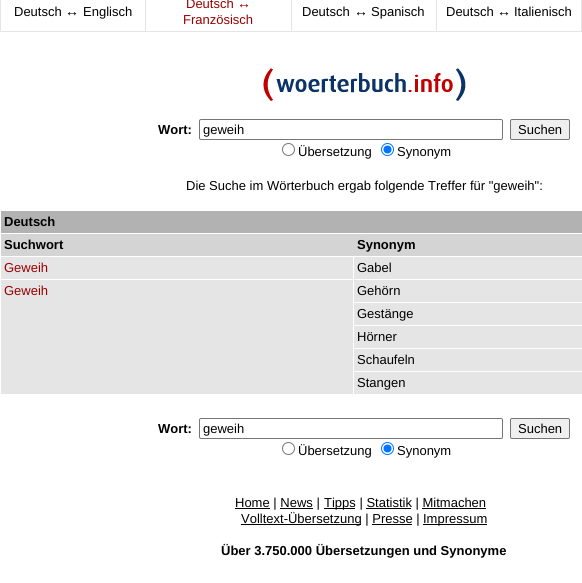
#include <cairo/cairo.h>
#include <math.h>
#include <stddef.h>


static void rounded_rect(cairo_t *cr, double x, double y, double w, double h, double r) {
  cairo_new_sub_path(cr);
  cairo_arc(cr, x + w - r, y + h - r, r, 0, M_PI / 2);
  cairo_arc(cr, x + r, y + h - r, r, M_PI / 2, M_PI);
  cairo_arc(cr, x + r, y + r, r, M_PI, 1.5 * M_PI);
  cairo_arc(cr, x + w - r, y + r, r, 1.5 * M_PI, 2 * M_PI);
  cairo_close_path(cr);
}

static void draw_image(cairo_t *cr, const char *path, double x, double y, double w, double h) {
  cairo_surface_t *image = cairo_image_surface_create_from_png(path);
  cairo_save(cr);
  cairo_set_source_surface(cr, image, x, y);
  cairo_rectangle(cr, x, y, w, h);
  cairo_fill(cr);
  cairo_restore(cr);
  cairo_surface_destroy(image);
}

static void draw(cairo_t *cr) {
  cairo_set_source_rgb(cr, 1, 1, 1);
  cairo_paint(cr);
  cairo_set_source_rgb(cr, 229 / 255.0, 229 / 255.0, 229 / 255.0);
  cairo_rectangle(cr, 0, 0, 582, 32);
  cairo_fill(cr);
  cairo_set_source_rgb(cr, 1, 1, 1);
  cairo_rectangle(cr, 1, 0, 144, 31);
  cairo_fill(cr);
  cairo_rectangle(cr, 146, 0, 145, 31);
  cairo_fill(cr);
  cairo_rectangle(cr, 292, 0, 144, 31);
  cairo_fill(cr);
  cairo_rectangle(cr, 437, 0, 144, 31);
  cairo_fill(cr);
  draw_image(cr, "images/1.png", 263, 68, 203, 33);
  rounded_rect(cr, 199.5, 119.5, 303, 20, 1.5);
  cairo_set_source_rgb(cr, 118 / 255.0, 118 / 255.0, 118 / 255.0);
  cairo_set_line_width(cr, 1);
  cairo_stroke(cr);
  cairo_set_source_rgb(cr, 239 / 255.0, 239 / 255.0, 239 / 255.0);
  rounded_rect(cr, 510.5, 119.5, 59, 20, 1.5);
  cairo_fill_preserve(cr);
  cairo_set_source_rgb(cr, 118 / 255.0, 118 / 255.0, 118 / 255.0);
  cairo_stroke(cr);
  cairo_arc(cr, 288.5, 149.5, 6, 0, 2 * M_PI);
  cairo_stroke(cr);
  cairo_arc(cr, 387.5, 149.5, 6, 0, 2 * M_PI);
  cairo_set_source_rgb(cr, 0, 117 / 255.0, 1);
  cairo_stroke(cr);
  cairo_arc(cr, 387.5, 149.5, 4, 0, 2 * M_PI);
  cairo_fill(cr);
  cairo_set_source_rgb(cr, 178 / 255.0, 178 / 255.0, 178 / 255.0);
  cairo_rectangle(cr, 1, 211, 581, 22);
  cairo_fill(cr);
  cairo_set_source_rgb(cr, 212 / 255.0, 212 / 255.0, 212 / 255.0);
  cairo_rectangle(cr, 1, 234, 581, 22);
  cairo_fill(cr);
  cairo_set_source_rgb(cr, 229 / 255.0, 229 / 255.0, 229 / 255.0);
  cairo_rectangle(cr, 1, 257, 352, 22);
  cairo_fill(cr);
  cairo_rectangle(cr, 354, 257, 228, 22);
  cairo_fill(cr);
  cairo_rectangle(cr, 1, 280, 352, 114);
  cairo_fill(cr);
  cairo_rectangle(cr, 354, 280, 228, 22);
  cairo_fill(cr);
  cairo_rectangle(cr, 354, 303, 228, 22);
  cairo_fill(cr);
  cairo_rectangle(cr, 354, 326, 228, 22);
  cairo_fill(cr);
  cairo_rectangle(cr, 354, 349, 228, 22);
  cairo_fill(cr);
  cairo_rectangle(cr, 354, 372, 228, 22);
  cairo_fill(cr);
  rounded_rect(cr, 199.5, 418.5, 303, 20, 1.5);
  cairo_set_source_rgb(cr, 118 / 255.0, 118 / 255.0, 118 / 255.0);
  cairo_stroke(cr);
  cairo_set_source_rgb(cr, 239 / 255.0, 239 / 255.0, 239 / 255.0);
  rounded_rect(cr, 510.5, 418.5, 59, 20, 1.5);
  cairo_fill_preserve(cr);
  cairo_set_source_rgb(cr, 118 / 255.0, 118 / 255.0, 118 / 255.0);
  cairo_stroke(cr);
  cairo_arc(cr, 288.5, 448.5, 6, 0, 2 * M_PI);
  cairo_stroke(cr);
  cairo_arc(cr, 387.5, 448.5, 6, 0, 2 * M_PI);
  cairo_set_source_rgb(cr, 0, 117 / 255.0, 1);
  cairo_stroke(cr);
  cairo_arc(cr, 387.5, 448.5, 4, 0, 2 * M_PI);
  cairo_fill(cr);
  cairo_set_source_rgb(cr, 0, 0, 0);
  cairo_rectangle(cr, 235, 508, 35, 1);
  cairo_fill(cr);
  cairo_rectangle(cr, 280, 508, 33, 1);
  cairo_fill(cr);
  cairo_rectangle(cr, 324, 508, 31, 1);
  cairo_fill(cr);
  cairo_rectangle(cr, 366, 508, 45, 1);
  cairo_fill(cr);
  cairo_rectangle(cr, 422, 508, 64, 1);
  cairo_fill(cr);
  cairo_rectangle(cr, 241, 524, 120, 1);
  cairo_fill(cr);
  cairo_rectangle(cr, 372, 524, 40, 1);
  cairo_fill(cr);
  cairo_rectangle(cr, 423, 524, 64, 1);
  cairo_fill(cr);
  cairo_select_font_face(cr, "Liberation Sans", CAIRO_FONT_SLANT_NORMAL, CAIRO_FONT_WEIGHT_NORMAL);
  cairo_set_font_size(cr, 13);
  cairo_move_to(cr, 14, 16);
  cairo_show_text(cr, "Deutsch");
  cairo_set_font_size(cr, 14);
  cairo_move_to(cr, 65, 16);
  cairo_show_text(cr, "↔");
  cairo_set_font_size(cr, 13);
  cairo_move_to(cr, 83, 16);
  cairo_show_text(cr, "Englisch");
  cairo_set_source_rgb(cr, 153 / 255.0, 0, 0);
  cairo_move_to(cr, 186, 8);
  cairo_show_text(cr, "Deutsch");
  cairo_set_font_size(cr, 14);
  cairo_move_to(cr, 237, 8);
  cairo_show_text(cr, "↔");
  cairo_set_font_size(cr, 13);
  cairo_move_to(cr, 183, 24);
  cairo_show_text(cr, "Französisch");
  cairo_set_source_rgb(cr, 0, 0, 0);
  cairo_move_to(cr, 302, 16);
  cairo_show_text(cr, "Deutsch");
  cairo_set_font_size(cr, 14);
  cairo_move_to(cr, 354, 16);
  cairo_show_text(cr, "↔");
  cairo_set_font_size(cr, 13);
  cairo_move_to(cr, 371, 16);
  cairo_show_text(cr, "Spanisch");
  cairo_move_to(cr, 446, 16);
  cairo_show_text(cr, "Deutsch");
  cairo_set_font_size(cr, 14);
  cairo_move_to(cr, 497, 16);
  cairo_show_text(cr, "↔");
  cairo_set_font_size(cr, 13);
  cairo_move_to(cr, 514, 16);
  cairo_show_text(cr, "Italienisch");
  cairo_select_font_face(cr, "Liberation Sans", CAIRO_FONT_SLANT_NORMAL, CAIRO_FONT_WEIGHT_BOLD);
  cairo_move_to(cr, 158, 134);
  cairo_show_text(cr, "Wort:");
  cairo_select_font_face(cr, "Liberation Sans", CAIRO_FONT_SLANT_NORMAL, CAIRO_FONT_WEIGHT_NORMAL);
  cairo_move_to(cr, 203, 134);
  cairo_show_text(cr, "geweih");
  cairo_move_to(cr, 518, 134);
  cairo_show_text(cr, "Suchen");
  cairo_move_to(cr, 298, 156);
  cairo_show_text(cr, "Übersetzung");
  cairo_move_to(cr, 397, 156);
  cairo_show_text(cr, "Synonym");
  cairo_move_to(cr, 186, 190);
  cairo_show_text(cr, "Die Suche im Wörterbuch ergab folgende Treffer für \"geweih\":");
  cairo_select_font_face(cr, "Liberation Sans", CAIRO_FONT_SLANT_NORMAL, CAIRO_FONT_WEIGHT_BOLD);
  cairo_move_to(cr, 4, 226);
  cairo_show_text(cr, "Deutsch");
  cairo_move_to(cr, 4, 249);
  cairo_show_text(cr, "Suchwort");
  cairo_move_to(cr, 357, 249);
  cairo_show_text(cr, "Synonym");
  cairo_select_font_face(cr, "Liberation Sans", CAIRO_FONT_SLANT_NORMAL, CAIRO_FONT_WEIGHT_NORMAL);
  cairo_set_source_rgb(cr, 153 / 255.0, 0, 0);
  cairo_move_to(cr, 4, 272);
  cairo_show_text(cr, "Geweih");
  cairo_set_source_rgb(cr, 0, 0, 0);
  cairo_move_to(cr, 357, 272);
  cairo_show_text(cr, "Gabel");
  cairo_set_source_rgb(cr, 153 / 255.0, 0, 0);
  cairo_move_to(cr, 4, 295);
  cairo_show_text(cr, "Geweih");
  cairo_set_source_rgb(cr, 0, 0, 0);
  cairo_move_to(cr, 357, 295);
  cairo_show_text(cr, "Gehörn");
  cairo_move_to(cr, 357, 318);
  cairo_show_text(cr, "Gestänge");
  cairo_move_to(cr, 357, 341);
  cairo_show_text(cr, "Hörner");
  cairo_move_to(cr, 357, 364);
  cairo_show_text(cr, "Schaufeln");
  cairo_move_to(cr, 357, 387);
  cairo_show_text(cr, "Stangen");
  cairo_select_font_face(cr, "Liberation Sans", CAIRO_FONT_SLANT_NORMAL, CAIRO_FONT_WEIGHT_BOLD);
  cairo_move_to(cr, 158, 433);
  cairo_show_text(cr, "Wort:");
  cairo_select_font_face(cr, "Liberation Sans", CAIRO_FONT_SLANT_NORMAL, CAIRO_FONT_WEIGHT_NORMAL);
  cairo_move_to(cr, 203, 433);
  cairo_show_text(cr, "geweih");
  cairo_move_to(cr, 518, 433);
  cairo_show_text(cr, "Suchen");
  cairo_move_to(cr, 298, 455);
  cairo_show_text(cr, "Übersetzung");
  cairo_move_to(cr, 397, 455);
  cairo_show_text(cr, "Synonym");
  cairo_move_to(cr, 235, 507);
  cairo_show_text(cr, "Home | News |");
  cairo_move_to(cr, 324, 507);
  cairo_show_text(cr, "Tipps | Statistik | Mitmachen");
  cairo_move_to(cr, 241, 523);
  cairo_show_text(cr, "Volltext-Übersetzung | Presse |");
  cairo_move_to(cr, 423, 523);
  cairo_show_text(cr, "Impressum");
  cairo_select_font_face(cr, "Liberation Sans", CAIRO_FONT_SLANT_NORMAL, CAIRO_FONT_WEIGHT_BOLD);
  cairo_move_to(cr, 221, 555);
  cairo_show_text(cr, "Über 3.750.000 Übersetzungen und Synonyme");
}

int main(void) {
  cairo_surface_t *surface = cairo_image_surface_create(CAIRO_FORMAT_RGB24, 582, 583);
  cairo_t *cr = cairo_create(surface);
  cairo_font_options_t *options = cairo_font_options_create();
  cairo_font_options_set_hint_metrics(options, CAIRO_HINT_METRICS_OFF);
  cairo_font_options_set_hint_style(options, CAIRO_HINT_STYLE_NONE);
  cairo_set_font_options(cr, options);
  cairo_set_miter_limit(cr, 4);
  draw(cr);
  cairo_surface_write_to_png(surface, "out.png");
  cairo_font_options_destroy(options);
  cairo_destroy(cr);
  cairo_surface_destroy(surface);
  return 0;
}
